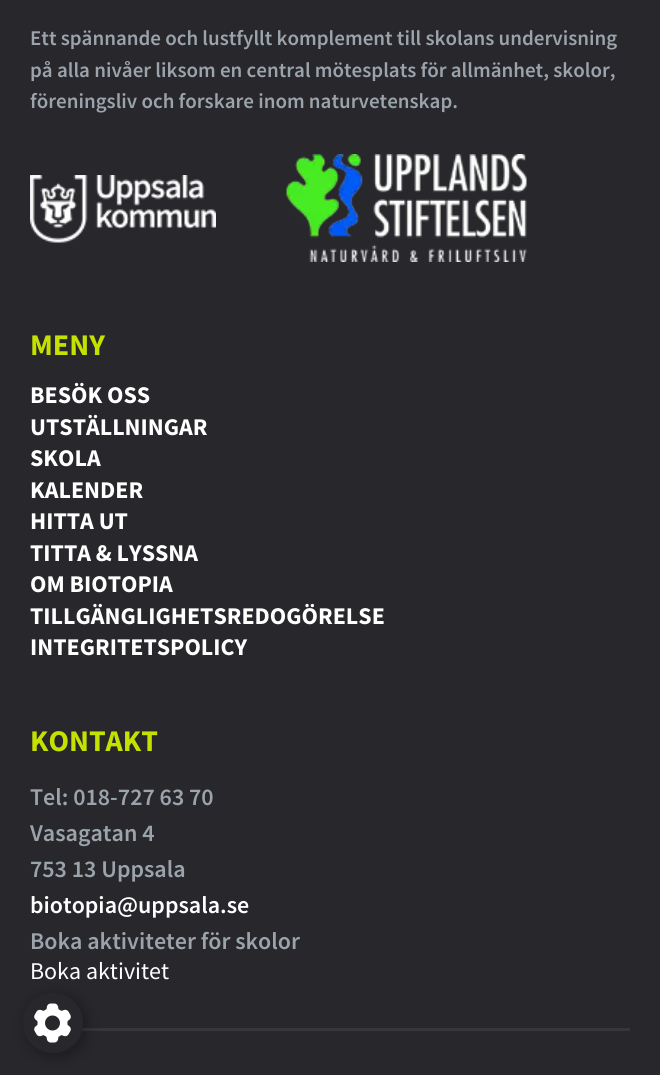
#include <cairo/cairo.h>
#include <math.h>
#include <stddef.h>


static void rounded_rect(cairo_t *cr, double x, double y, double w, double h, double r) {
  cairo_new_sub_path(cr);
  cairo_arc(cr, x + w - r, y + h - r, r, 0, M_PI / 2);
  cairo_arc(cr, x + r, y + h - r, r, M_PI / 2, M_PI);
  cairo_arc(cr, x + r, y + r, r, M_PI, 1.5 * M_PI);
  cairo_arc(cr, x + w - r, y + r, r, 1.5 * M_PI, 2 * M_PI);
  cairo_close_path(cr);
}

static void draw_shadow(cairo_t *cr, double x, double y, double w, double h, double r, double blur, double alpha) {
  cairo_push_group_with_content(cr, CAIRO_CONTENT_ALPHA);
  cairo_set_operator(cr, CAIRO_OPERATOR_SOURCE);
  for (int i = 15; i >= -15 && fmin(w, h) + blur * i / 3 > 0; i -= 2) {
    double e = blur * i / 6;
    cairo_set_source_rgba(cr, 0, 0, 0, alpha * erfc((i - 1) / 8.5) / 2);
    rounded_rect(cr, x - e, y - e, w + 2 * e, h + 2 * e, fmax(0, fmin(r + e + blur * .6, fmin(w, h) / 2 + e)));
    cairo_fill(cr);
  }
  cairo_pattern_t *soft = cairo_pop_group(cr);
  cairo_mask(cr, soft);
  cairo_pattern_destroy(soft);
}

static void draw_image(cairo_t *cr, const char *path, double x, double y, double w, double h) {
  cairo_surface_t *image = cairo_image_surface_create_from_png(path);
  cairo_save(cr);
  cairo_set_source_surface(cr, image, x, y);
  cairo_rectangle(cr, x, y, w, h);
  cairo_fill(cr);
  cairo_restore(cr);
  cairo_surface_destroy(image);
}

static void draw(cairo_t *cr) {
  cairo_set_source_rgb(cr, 39 / 255.0, 39 / 255.0, 44 / 255.0);
  cairo_paint(cr);
  draw_image(cr, "images/1.png", 30, 175, 186, 68);
  draw_image(cr, "images/2.png", 286, 154, 241, 108);
  cairo_set_source_rgb(cr, 54 / 255.0, 55 / 255.0, 59 / 255.0);
  cairo_rectangle(cr, 81, 1028, 549, 3);
  cairo_fill(cr);
  cairo_set_source_rgb(cr, 0, 0, 0);
  draw_shadow(cr, 26, 996, 60, 60, 30, 7.5, 0.3);
  cairo_set_source_rgb(cr, 40 / 255.0, 39 / 255.0, 44 / 255.0);
  cairo_arc(cr, 53, 1023, 30, 0, 2 * M_PI);
  cairo_fill(cr);
  draw_image(cr, "images/3.png", 34, 1003, 37, 40);
  cairo_select_font_face(cr, "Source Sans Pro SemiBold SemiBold", CAIRO_FONT_SLANT_NORMAL, CAIRO_FONT_WEIGHT_NORMAL);
  cairo_set_font_size(cr, 21);
  cairo_set_source_rgb(cr, 155 / 255.0, 163 / 255.0, 171 / 255.0);
  cairo_move_to(cr, 30, 45);
  cairo_show_text(cr, "Ett spännande och lustfyllt komplement till skolans undervisning");
  cairo_move_to(cr, 30, 77);
  cairo_show_text(cr, "på alla nivåer liksom en central mötesplats för allmänhet, skolor,");
  cairo_move_to(cr, 30, 108);
  cairo_show_text(cr, "föreningsliv och forskare inom naturvetenskap.");
  cairo_select_font_face(cr, "Source Sans Pro", CAIRO_FONT_SLANT_NORMAL, CAIRO_FONT_WEIGHT_BOLD);
  cairo_set_font_size(cr, 30);
  cairo_set_source_rgb(cr, 196 / 255.0, 225 / 255.0, 0);
  cairo_move_to(cr, 30, 355);
  cairo_show_text(cr, "MENY");
  cairo_set_font_size(cr, 24);
  cairo_set_source_rgb(cr, 1, 1, 1);
  cairo_move_to(cr, 30, 403);
  cairo_show_text(cr, "BESÖK OSS");
  cairo_move_to(cr, 30, 435);
  cairo_show_text(cr, "UTSTÄLLNINGAR");
  cairo_move_to(cr, 30, 466);
  cairo_show_text(cr, "SKOLA");
  cairo_move_to(cr, 30, 498);
  cairo_show_text(cr, "KALENDER");
  cairo_move_to(cr, 30, 529);
  cairo_show_text(cr, "HITTA UT");
  cairo_move_to(cr, 30, 561);
  cairo_show_text(cr, "TITTA & LYSSNA");
  cairo_move_to(cr, 30, 592);
  cairo_show_text(cr, "OM BIOTOPIA");
  cairo_move_to(cr, 30, 624);
  cairo_show_text(cr, "TILLGÄNGLIGHETSREDOGÖRELSE");
  cairo_move_to(cr, 30, 655);
  cairo_show_text(cr, "INTEGRITETSPOLICY");
  cairo_set_font_size(cr, 30);
  cairo_set_source_rgb(cr, 196 / 255.0, 225 / 255.0, 0);
  cairo_move_to(cr, 30, 751);
  cairo_show_text(cr, "KONTAKT");
  cairo_select_font_face(cr, "Source Sans Pro SemiBold SemiBold", CAIRO_FONT_SLANT_NORMAL, CAIRO_FONT_WEIGHT_NORMAL);
  cairo_set_font_size(cr, 24);
  cairo_set_source_rgb(cr, 155 / 255.0, 163 / 255.0, 171 / 255.0);
  cairo_move_to(cr, 30, 805);
  cairo_show_text(cr, "Tel: 018-727 63 70");
  cairo_move_to(cr, 30, 841);
  cairo_show_text(cr, "Vasagatan 4");
  cairo_move_to(cr, 30, 877);
  cairo_show_text(cr, "753 13 Uppsala");
  cairo_set_source_rgb(cr, 1, 1, 1);
  cairo_move_to(cr, 30, 913);
  cairo_show_text(cr, "biotopia@uppsala.se");
  cairo_set_source_rgb(cr, 155 / 255.0, 163 / 255.0, 171 / 255.0);
  cairo_move_to(cr, 30, 949);
  cairo_show_text(cr, "Boka aktiviteter för skolor");
  cairo_select_font_face(cr, "Source Sans Pro", CAIRO_FONT_SLANT_NORMAL, CAIRO_FONT_WEIGHT_NORMAL);
  cairo_set_source_rgb(cr, 1, 1, 1);
  cairo_move_to(cr, 30, 979);
  cairo_show_text(cr, "Boka aktivitet");
}

int main(void) {
  cairo_surface_t *surface = cairo_image_surface_create(CAIRO_FORMAT_RGB24, 660, 1075);
  cairo_t *cr = cairo_create(surface);
  cairo_font_options_t *options = cairo_font_options_create();
  cairo_font_options_set_hint_metrics(options, CAIRO_HINT_METRICS_OFF);
  cairo_font_options_set_hint_style(options, CAIRO_HINT_STYLE_NONE);
  cairo_set_font_options(cr, options);
  cairo_set_miter_limit(cr, 4);
  draw(cr);
  cairo_surface_write_to_png(surface, "out.png");
  cairo_font_options_destroy(options);
  cairo_destroy(cr);
  cairo_surface_destroy(surface);
  return 0;
}
